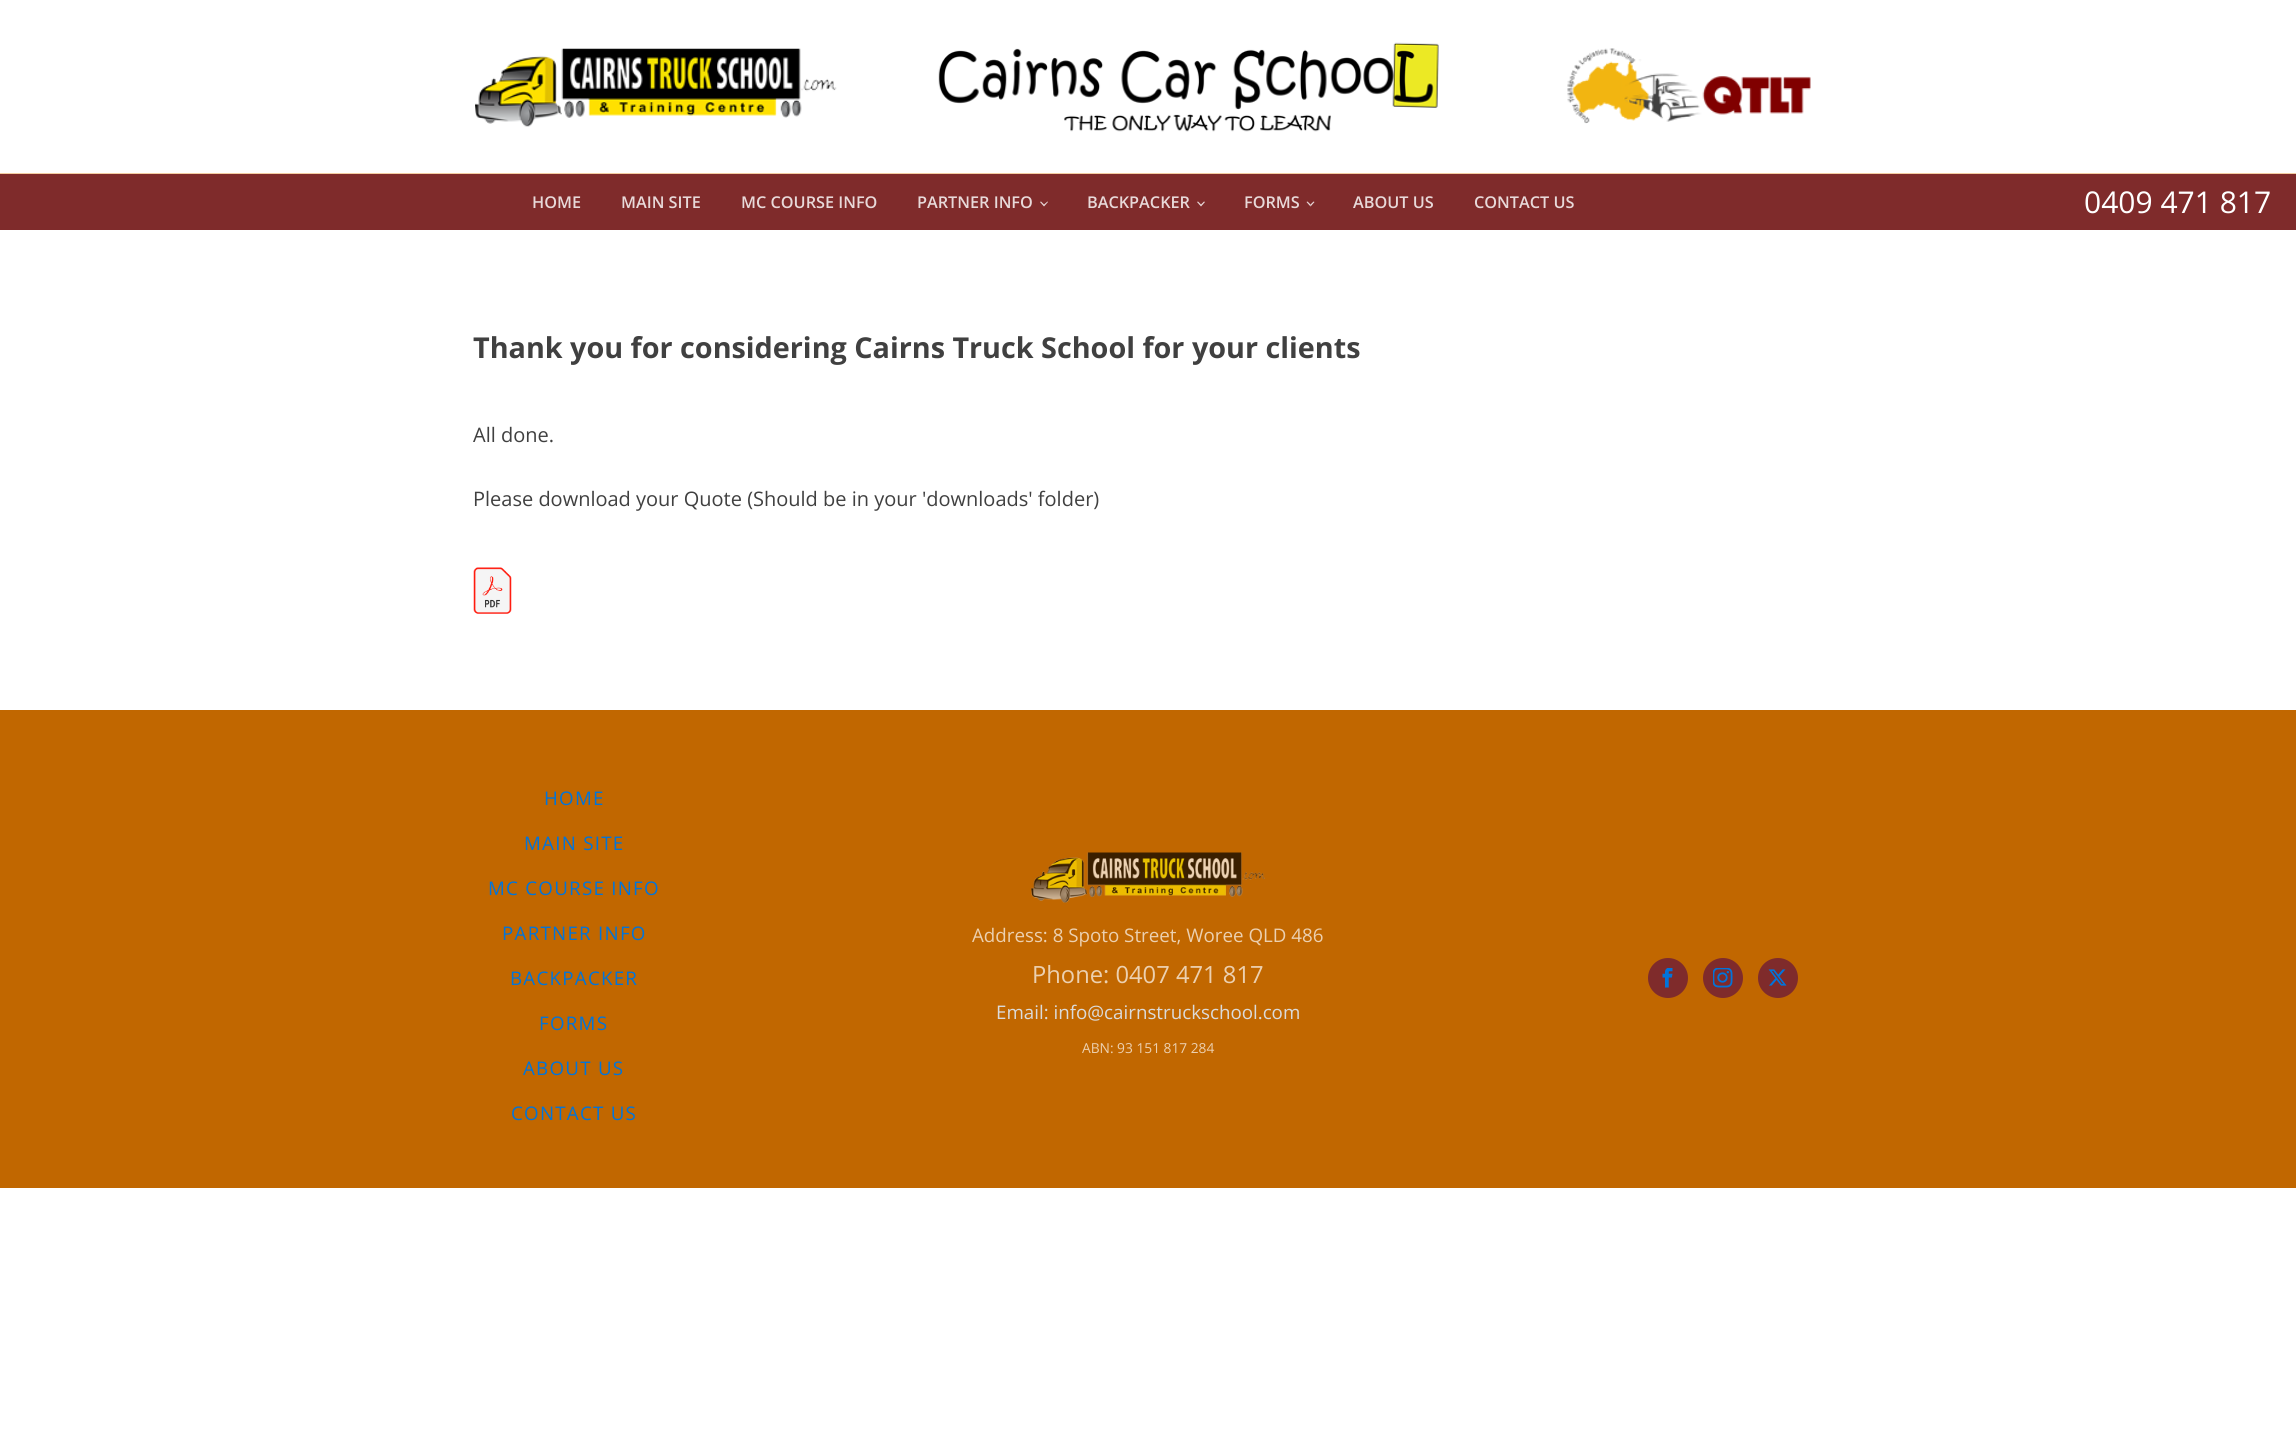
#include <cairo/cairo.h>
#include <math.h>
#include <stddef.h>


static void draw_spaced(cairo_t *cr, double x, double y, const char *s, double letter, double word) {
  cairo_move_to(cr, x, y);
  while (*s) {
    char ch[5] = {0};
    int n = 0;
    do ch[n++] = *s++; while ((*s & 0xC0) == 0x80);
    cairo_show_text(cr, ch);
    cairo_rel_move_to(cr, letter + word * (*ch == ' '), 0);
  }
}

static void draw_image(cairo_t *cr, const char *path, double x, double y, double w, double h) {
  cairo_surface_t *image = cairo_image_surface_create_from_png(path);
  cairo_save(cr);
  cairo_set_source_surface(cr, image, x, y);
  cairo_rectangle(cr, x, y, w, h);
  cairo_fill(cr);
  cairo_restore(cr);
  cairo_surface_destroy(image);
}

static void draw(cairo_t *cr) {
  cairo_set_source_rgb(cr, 1, 1, 1);
  cairo_paint(cr);
  cairo_set_source_rgb(cr, 244 / 255.0, 205 / 255.0, 161 / 255.0);
  cairo_rectangle(cr, 0, 173, 2296, 1);
  cairo_fill(cr);
  draw_image(cr, "images/1.png", 475, 48, 362, 79);
  draw_image(cr, "images/2.png", 938, 42, 501, 90);
  draw_image(cr, "images/3.png", 1567, 48, 244, 76);
  cairo_set_source_rgb(cr, 127 / 255.0, 43 / 255.0, 43 / 255.0);
  cairo_rectangle(cr, 0, 174, 2296, 56);
  cairo_fill(cr);
  cairo_set_source_rgb(cr, 232 / 255.0, 217 / 255.0, 217 / 255.0);
  cairo_new_path(cr);
  cairo_move_to(cr, 1048, 202);
  cairo_line_to(cr, 1044, 206.5);
  cairo_line_to(cr, 1044, 204.5);
  cairo_line_to(cr, 1047.5, 201.5);
  cairo_close_path(cr);
  cairo_move_to(cr, 1044, 206.5);
  cairo_line_to(cr, 1040, 202);
  cairo_line_to(cr, 1041, 201.5);
  cairo_line_to(cr, 1044, 204.5);
  cairo_close_path(cr);
  cairo_fill(cr);
  cairo_new_path(cr);
  cairo_move_to(cr, 1205, 202);
  cairo_line_to(cr, 1201, 206.5);
  cairo_line_to(cr, 1201, 204.5);
  cairo_line_to(cr, 1204, 201.5);
  cairo_close_path(cr);
  cairo_move_to(cr, 1201, 206.5);
  cairo_line_to(cr, 1197, 202);
  cairo_line_to(cr, 1198, 201.5);
  cairo_line_to(cr, 1201, 204.5);
  cairo_close_path(cr);
  cairo_fill(cr);
  cairo_new_path(cr);
  cairo_move_to(cr, 1314.5, 202);
  cairo_line_to(cr, 1310.5, 206.5);
  cairo_line_to(cr, 1310.5, 204.5);
  cairo_line_to(cr, 1313.5, 201.5);
  cairo_close_path(cr);
  cairo_fill(cr);
  cairo_set_source_rgba(cr, 1, 1, 1, 0.82);
  cairo_new_path(cr);
  cairo_move_to(cr, 1310.5, 206.5);
  cairo_line_to(cr, 1306.5, 202);
  cairo_line_to(cr, 1307.5, 201.5);
  cairo_line_to(cr, 1310.5, 204.5);
  cairo_close_path(cr);
  cairo_fill(cr);
  draw_image(cr, "images/4.png", 473, 567, 39, 47);
  cairo_set_source_rgb(cr, 193 / 255.0, 103 / 255.0, 0);
  cairo_rectangle(cr, 0, 710, 2296, 478);
  cairo_fill(cr);
  draw_image(cr, "images/5.png", 1031, 852, 234, 51);
  cairo_set_source_rgb(cr, 127 / 255.0, 43 / 255.0, 43 / 255.0);
  cairo_arc(cr, 1668, 978, 20, 0, 2 * M_PI);
  cairo_fill(cr);
  draw_image(cr, "images/6.png", 1662, 968, 11, 20);
  cairo_arc(cr, 1723, 978, 20, 0, 2 * M_PI);
  cairo_fill(cr);
  draw_image(cr, "images/7.png", 1713, 968, 20, 20);
  cairo_arc(cr, 1778, 978, 20, 0, 2 * M_PI);
  cairo_fill(cr);
  draw_image(cr, "images/8.png", 1768, 969, 19, 17);
  cairo_select_font_face(cr, "Open Sans SemiBold", CAIRO_FONT_SLANT_NORMAL, CAIRO_FONT_WEIGHT_NORMAL);
  cairo_set_font_size(cr, 16.25);
  cairo_set_source_rgb(cr, 232 / 255.0, 217 / 255.0, 217 / 255.0);
  cairo_move_to(cr, 532, 208);
  cairo_show_text(cr, "HOME");
  cairo_move_to(cr, 621, 208);
  cairo_show_text(cr, "MAIN SITE");
  cairo_move_to(cr, 741, 208);
  cairo_show_text(cr, "MC COURSE INFO");
  cairo_move_to(cr, 917, 208);
  cairo_show_text(cr, "PARTNER INFO");
  cairo_move_to(cr, 1087, 208);
  cairo_show_text(cr, "BACKPACKER");
  cairo_move_to(cr, 1244, 208);
  cairo_show_text(cr, "FORMS");
  cairo_move_to(cr, 1353, 208);
  cairo_show_text(cr, "ABOUT US");
  cairo_move_to(cr, 1474, 208);
  cairo_show_text(cr, "CONTACT US");
  cairo_select_font_face(cr, "Open Sans", CAIRO_FONT_SLANT_NORMAL, CAIRO_FONT_WEIGHT_NORMAL);
  cairo_set_font_size(cr, 30);
  cairo_set_source_rgb(cr, 1, 1, 1);
  cairo_move_to(cr, 2084, 213);
  cairo_show_text(cr, "0409 471 817");
  cairo_select_font_face(cr, "Open Sans", CAIRO_FONT_SLANT_NORMAL, CAIRO_FONT_WEIGHT_BOLD);
  cairo_set_font_size(cr, 28.75);
  cairo_set_source_rgb(cr, 64 / 255.0, 64 / 255.0, 64 / 255.0);
  cairo_move_to(cr, 473, 358);
  cairo_show_text(cr, "Thank you for considering Cairns Truck School for your clients");
  cairo_select_font_face(cr, "Open Sans", CAIRO_FONT_SLANT_NORMAL, CAIRO_FONT_WEIGHT_NORMAL);
  cairo_set_font_size(cr, 20);
  cairo_move_to(cr, 473, 442);
  cairo_show_text(cr, "All done.");
  cairo_move_to(cr, 473, 506);
  cairo_show_text(cr, "Please download your Quote (Should be in your 'downloads' folder)");
  cairo_set_font_size(cr, 18.75);
  cairo_set_source_rgb(cr, 0, 116 / 255.0, 219 / 255.0);
  draw_spaced(cr, 544, 805, "HOME", 1.25, 0);
  draw_spaced(cr, 524, 850, "MAIN SITE", 1.25, 0);
  draw_spaced(cr, 488, 895, "MC COURSE INFO", 1.25, 0);
  draw_spaced(cr, 502, 940, "PARTNER INFO", 1.25, 0);
  draw_spaced(cr, 510, 985, "BACKPACKER", 1.25, 0);
  draw_spaced(cr, 539, 1030, "FORMS", 1.25, 0);
  draw_spaced(cr, 523, 1075, "ABOUT US", 1.25, 0);
  draw_spaced(cr, 511, 1120, "CONTACT US", 1.25, 0);
  cairo_set_source_rgb(cr, 236 / 255.0, 208 / 255.0, 176 / 255.0);
  cairo_move_to(cr, 972, 942);
  cairo_show_text(cr, "Address: 8 Spoto Street, Woree QLD 486");
  cairo_set_font_size(cr, 23.75);
  cairo_move_to(cr, 1032, 983);
  cairo_show_text(cr, "Phone: 0407 471 817");
  cairo_set_font_size(cr, 18.75);
  cairo_set_source_rgb(cr, 219 / 255.0, 219 / 255.0, 219 / 255.0);
  cairo_move_to(cr, 996, 1019);
  cairo_show_text(cr, "Email: info@cairnstruckschool.com");
  cairo_set_font_size(cr, 13.75);
  cairo_set_source_rgb(cr, 236 / 255.0, 208 / 255.0, 176 / 255.0);
  cairo_move_to(cr, 1082, 1053);
  cairo_show_text(cr, "ABN: 93 151 817 284");
}

int main(void) {
  cairo_surface_t *surface = cairo_image_surface_create(CAIRO_FORMAT_RGB24, 2296, 1451);
  cairo_t *cr = cairo_create(surface);
  cairo_font_options_t *options = cairo_font_options_create();
  cairo_font_options_set_hint_metrics(options, CAIRO_HINT_METRICS_OFF);
  cairo_font_options_set_hint_style(options, CAIRO_HINT_STYLE_NONE);
  cairo_set_font_options(cr, options);
  cairo_set_miter_limit(cr, 4);
  draw(cr);
  cairo_surface_write_to_png(surface, "out.png");
  cairo_font_options_destroy(options);
  cairo_destroy(cr);
  cairo_surface_destroy(surface);
  return 0;
}
